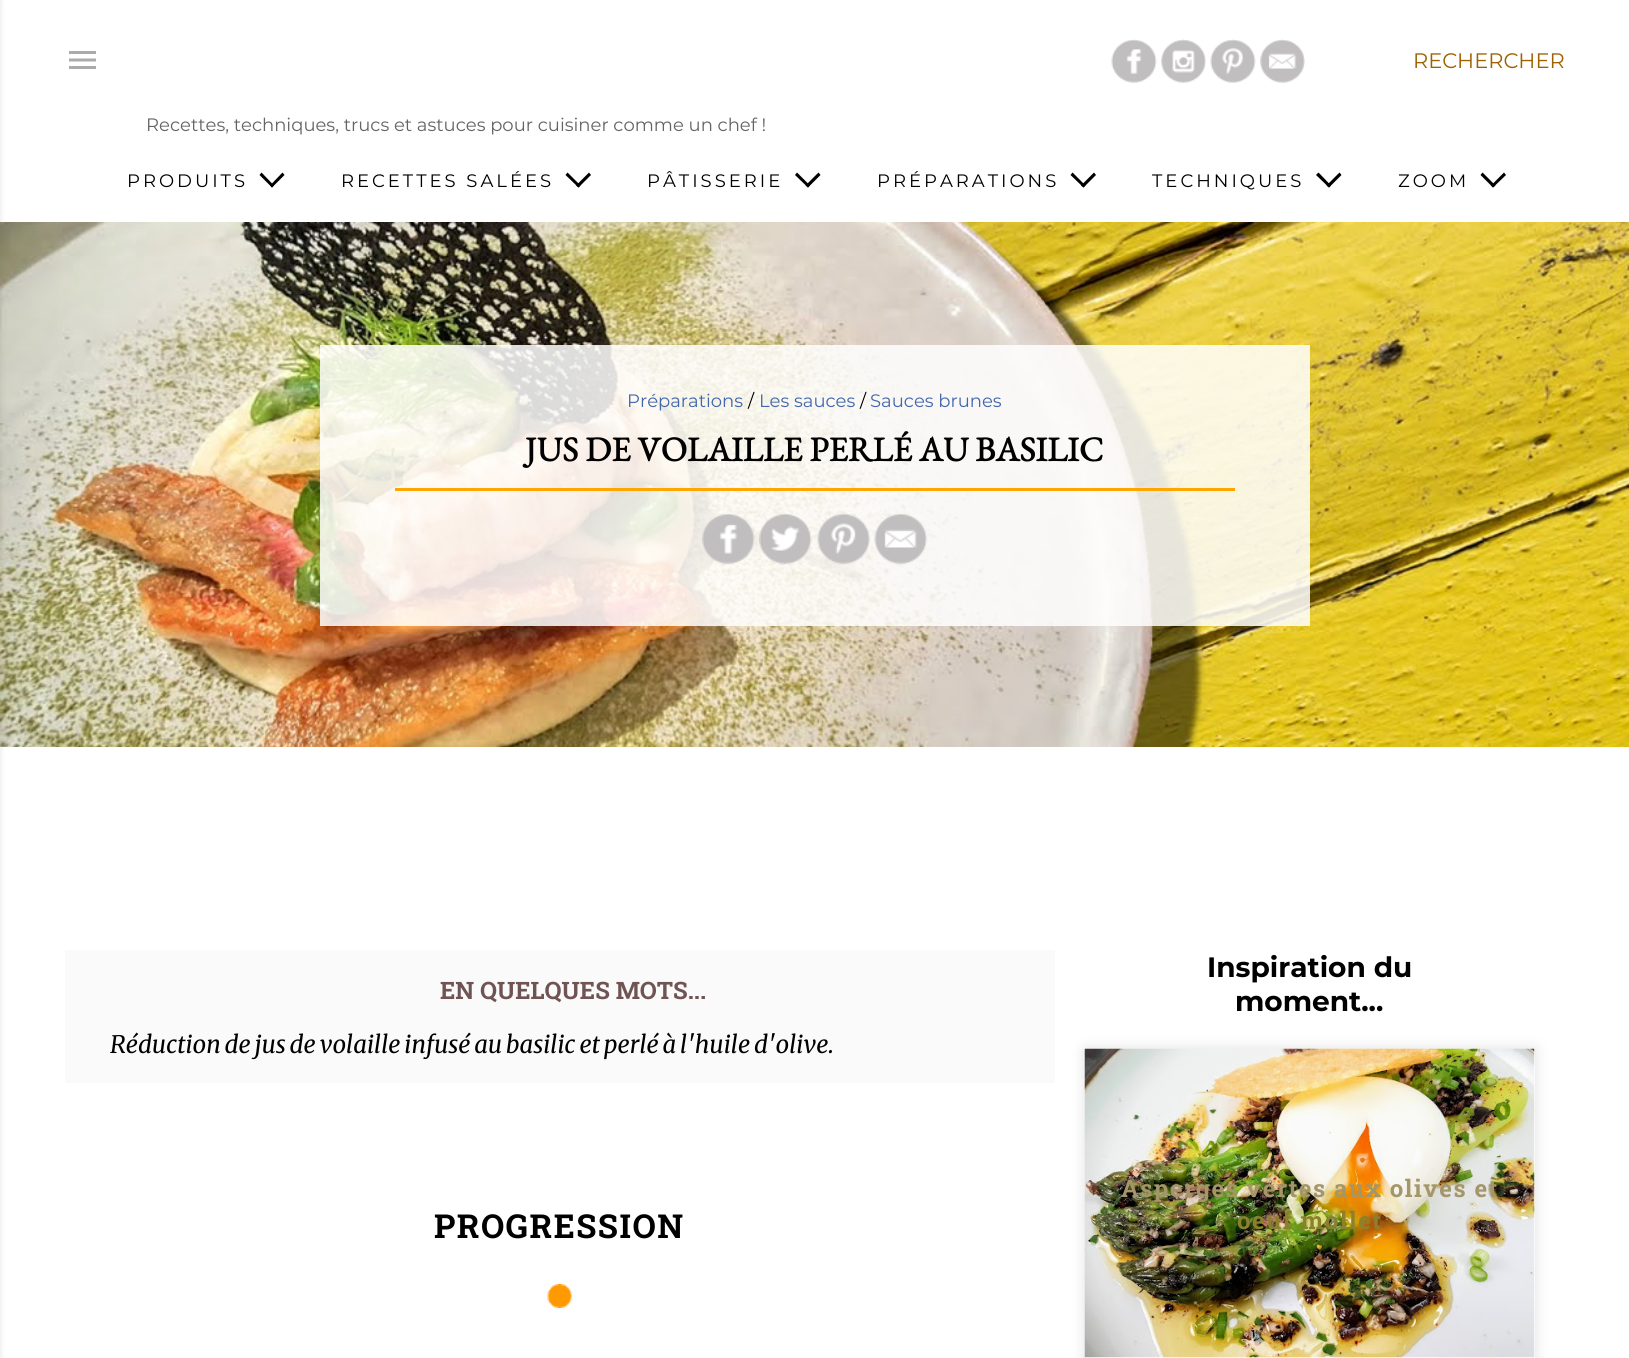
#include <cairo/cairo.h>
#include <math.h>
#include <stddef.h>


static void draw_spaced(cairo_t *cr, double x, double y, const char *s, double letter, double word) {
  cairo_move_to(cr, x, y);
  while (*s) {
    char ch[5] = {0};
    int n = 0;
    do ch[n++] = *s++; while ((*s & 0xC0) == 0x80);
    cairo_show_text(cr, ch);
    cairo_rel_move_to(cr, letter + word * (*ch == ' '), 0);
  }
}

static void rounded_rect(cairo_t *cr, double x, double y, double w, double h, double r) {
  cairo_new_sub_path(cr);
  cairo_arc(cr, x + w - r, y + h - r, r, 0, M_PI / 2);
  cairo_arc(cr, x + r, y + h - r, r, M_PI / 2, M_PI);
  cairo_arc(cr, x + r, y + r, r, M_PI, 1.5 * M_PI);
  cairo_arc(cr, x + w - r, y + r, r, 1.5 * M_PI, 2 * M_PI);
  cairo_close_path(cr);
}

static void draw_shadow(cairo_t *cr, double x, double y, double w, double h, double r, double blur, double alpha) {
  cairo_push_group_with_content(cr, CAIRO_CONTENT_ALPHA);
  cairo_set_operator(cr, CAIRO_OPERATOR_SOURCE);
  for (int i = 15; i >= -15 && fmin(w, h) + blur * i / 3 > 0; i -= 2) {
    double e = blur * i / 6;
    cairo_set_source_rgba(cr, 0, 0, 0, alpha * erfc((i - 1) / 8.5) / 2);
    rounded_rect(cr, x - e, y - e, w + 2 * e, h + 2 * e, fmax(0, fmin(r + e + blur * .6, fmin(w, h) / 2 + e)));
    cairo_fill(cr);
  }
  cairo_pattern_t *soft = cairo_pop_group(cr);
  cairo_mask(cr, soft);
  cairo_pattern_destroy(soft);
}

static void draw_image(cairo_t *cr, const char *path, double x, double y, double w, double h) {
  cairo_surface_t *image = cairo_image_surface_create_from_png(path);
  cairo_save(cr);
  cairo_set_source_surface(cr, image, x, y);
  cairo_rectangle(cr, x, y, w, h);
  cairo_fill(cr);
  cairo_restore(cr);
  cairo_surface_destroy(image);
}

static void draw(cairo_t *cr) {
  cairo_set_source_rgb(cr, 1, 1, 1);
  cairo_paint(cr);
  draw_image(cr, "images/6.png", 0, 222, 1629, 525);
  cairo_set_source_rgb(cr, 100 / 255.0, 100 / 255.0, 100 / 255.0);
  draw_shadow(cr, -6, 0, 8, 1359, 0, 2, 0.1);
  draw_image(cr, "images/1.png", 69, 51, 27, 18);
  draw_image(cr, "images/2.png", 1111, 39, 46, 44);
  draw_image(cr, "images/3.png", 1161, 39, 45, 44);
  draw_image(cr, "images/4.png", 1210, 39, 46, 44);
  draw_image(cr, "images/5.png", 1260, 39, 45, 44);
  cairo_set_source_rgb(cr, 0, 0, 0);
  cairo_new_path(cr);
  cairo_move_to(cr, 284.5, 175);
  cairo_line_to(cr, 272, 187.5);
  cairo_line_to(cr, 270, 185.5);
  cairo_line_to(cr, 282.5, 172.5);
  cairo_close_path(cr);
  cairo_fill(cr);
  cairo_new_path(cr);
  cairo_move_to(cr, 274, 185.5);
  cairo_line_to(cr, 272, 187.5);
  cairo_line_to(cr, 259.5, 175);
  cairo_line_to(cr, 261.5, 172.5);
  cairo_close_path(cr);
  cairo_fill(cr);
  cairo_new_path(cr);
  cairo_move_to(cr, 591, 175);
  cairo_line_to(cr, 578.5, 187.5);
  cairo_line_to(cr, 576, 185.5);
  cairo_line_to(cr, 589, 172.5);
  cairo_close_path(cr);
  cairo_fill(cr);
  cairo_new_path(cr);
  cairo_move_to(cr, 580.5, 185.5);
  cairo_line_to(cr, 578.5, 187.5);
  cairo_line_to(cr, 565.5, 175);
  cairo_line_to(cr, 567.5, 172.5);
  cairo_close_path(cr);
  cairo_fill(cr);
  cairo_new_path(cr);
  cairo_move_to(cr, 820.5, 175);
  cairo_line_to(cr, 808, 187.5);
  cairo_line_to(cr, 805.5, 185.5);
  cairo_line_to(cr, 818.5, 172.5);
  cairo_close_path(cr);
  cairo_fill(cr);
  cairo_new_path(cr);
  cairo_move_to(cr, 810, 185.5);
  cairo_line_to(cr, 808, 187.5);
  cairo_line_to(cr, 795, 175);
  cairo_line_to(cr, 797, 172.5);
  cairo_close_path(cr);
  cairo_fill(cr);
  cairo_new_path(cr);
  cairo_move_to(cr, 1096, 175);
  cairo_line_to(cr, 1083.5, 187.5);
  cairo_line_to(cr, 1081, 185.5);
  cairo_line_to(cr, 1094, 172.5);
  cairo_close_path(cr);
  cairo_fill(cr);
  cairo_new_path(cr);
  cairo_move_to(cr, 1085.5, 185.5);
  cairo_line_to(cr, 1083.5, 187.5);
  cairo_line_to(cr, 1070.5, 175);
  cairo_line_to(cr, 1072.5, 172.5);
  cairo_close_path(cr);
  cairo_fill(cr);
  cairo_new_path(cr);
  cairo_move_to(cr, 1341.5, 175);
  cairo_line_to(cr, 1329, 187.5);
  cairo_line_to(cr, 1326.5, 185.5);
  cairo_line_to(cr, 1339.5, 172.5);
  cairo_close_path(cr);
  cairo_fill(cr);
  cairo_new_path(cr);
  cairo_move_to(cr, 1331, 185.5);
  cairo_line_to(cr, 1329, 187.5);
  cairo_line_to(cr, 1316, 175);
  cairo_line_to(cr, 1318.5, 172.5);
  cairo_close_path(cr);
  cairo_fill(cr);
  cairo_new_path(cr);
  cairo_move_to(cr, 1506, 175);
  cairo_line_to(cr, 1493, 187.5);
  cairo_line_to(cr, 1491, 185.5);
  cairo_line_to(cr, 1504, 172.5);
  cairo_close_path(cr);
  cairo_fill(cr);
  cairo_new_path(cr);
  cairo_move_to(cr, 1495.5, 185.5);
  cairo_line_to(cr, 1493, 187.5);
  cairo_line_to(cr, 1480.5, 175);
  cairo_line_to(cr, 1482.5, 172.5);
  cairo_close_path(cr);
  cairo_fill(cr);
  cairo_set_source_rgba(cr, 1, 1, 1, 0.85);
  cairo_rectangle(cr, 320, 345, 990, 281);
  cairo_fill(cr);
  cairo_set_source_rgb(cr, 1, 165 / 255.0, 0);
  cairo_rectangle(cr, 395, 488, 840, 3);
  cairo_fill(cr);
  draw_image(cr, "images/7.png", 702, 513, 53, 52);
  draw_image(cr, "images/8.png", 759, 513, 53, 52);
  draw_image(cr, "images/9.png", 817, 513, 53, 52);
  draw_image(cr, "images/10.png", 874, 513, 53, 52);
  cairo_set_source_rgb(cr, 250 / 255.0, 250 / 255.0, 250 / 255.0);
  cairo_rectangle(cr, 65, 950, 990, 133);
  cairo_fill(cr);
  draw_image(cr, "images/11.png", 547, 1284, 25, 24);
  cairo_set_source_rgb(cr, 50 / 255.0, 50 / 255.0, 50 / 255.0);
  draw_shadow(cr, 1085, 1049, 450, 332, 0, 7.5, 0.15);
  cairo_set_source_rgb(cr, 1, 1, 1);
  cairo_rectangle(cr, 1085, 1049, 450, 309);
  cairo_fill(cr);
  draw_image(cr, "images/12.png", 1084, 1048, 451, 310);
  cairo_select_font_face(cr, "Montserrat", CAIRO_FONT_SLANT_NORMAL, CAIRO_FONT_WEIGHT_NORMAL);
  cairo_set_font_size(cr, 21);
  cairo_set_source_rgb(cr, 158 / 255.0, 97 / 255.0, 2 / 255.0);
  cairo_move_to(cr, 1413, 68);
  cairo_show_text(cr, "RECHERCHER");
  cairo_set_font_size(cr, 18);
  cairo_set_source_rgb(cr, 100 / 255.0, 100 / 255.0, 100 / 255.0);
  cairo_move_to(cr, 146, 131);
  cairo_show_text(cr, "Recettes, techniques, trucs et astuces pour cuisiner comme un chef !");
  cairo_set_source_rgb(cr, 0, 0, 0);
  draw_spaced(cr, 127, 187, "PRODUITS", 3, 0);
  draw_spaced(cr, 341, 187, "RECETTES SALÉES", 3, 0);
  draw_spaced(cr, 647, 187, "PÂTISSERIE", 3, 0);
  draw_spaced(cr, 877, 187, "PRÉPARATIONS", 3, 0);
  draw_spaced(cr, 1152, 187, "TECHNIQUES", 3, 0);
  draw_spaced(cr, 1398, 187, "ZOOM", 3, 0);
  cairo_set_source_rgb(cr, 67 / 255.0, 103 / 255.0, 171 / 255.0);
  cairo_move_to(cr, 627, 407);
  cairo_show_text(cr, "Préparations");
  cairo_set_source_rgb(cr, 0, 0, 0);
  cairo_move_to(cr, 748, 407);
  cairo_show_text(cr, "/");
  cairo_set_source_rgb(cr, 67 / 255.0, 103 / 255.0, 171 / 255.0);
  cairo_move_to(cr, 759, 407);
  cairo_show_text(cr, "Les sauces");
  cairo_set_source_rgb(cr, 0, 0, 0);
  cairo_move_to(cr, 860, 407);
  cairo_show_text(cr, "/");
  cairo_set_source_rgb(cr, 67 / 255.0, 103 / 255.0, 171 / 255.0);
  cairo_move_to(cr, 870, 407);
  cairo_show_text(cr, "Sauces brunes");
  cairo_select_font_face(cr, "EB Garamond", CAIRO_FONT_SLANT_NORMAL, CAIRO_FONT_WEIGHT_BOLD);
  cairo_set_font_size(cr, 34.5);
  cairo_set_source_rgb(cr, 0, 0, 0);
  cairo_move_to(cr, 525, 461);
  cairo_show_text(cr, "JUS DE VOLAILLE PERLÉ AU BASILIC");
  cairo_select_font_face(cr, "Roboto Slab", CAIRO_FONT_SLANT_NORMAL, CAIRO_FONT_WEIGHT_BOLD);
  cairo_set_font_size(cr, 24);
  cairo_set_source_rgb(cr, 112 / 255.0, 83 / 255.0, 83 / 255.0);
  cairo_move_to(cr, 440, 999);
  cairo_show_text(cr, "EN QUELQUES MOTS...");
  cairo_select_font_face(cr, "Merriweather Light", CAIRO_FONT_SLANT_ITALIC, CAIRO_FONT_WEIGHT_NORMAL);
  cairo_set_source_rgb(cr, 0, 0, 0);
  draw_spaced(cr, 110, 1053, "Réduction de jus de volaille infusé au basilic et perlé à l'huile d'olive.", 0, -1.5);
  cairo_select_font_face(cr, "Roboto Slab", CAIRO_FONT_SLANT_NORMAL, CAIRO_FONT_WEIGHT_BOLD);
  cairo_set_font_size(cr, 33);
  draw_spaced(cr, 434, 1238, "PROGRESSION", 1.5, 0);
  cairo_select_font_face(cr, "Montserrat", CAIRO_FONT_SLANT_NORMAL, CAIRO_FONT_WEIGHT_BOLD);
  cairo_set_font_size(cr, 28);
  cairo_move_to(cr, 1207, 977);
  cairo_show_text(cr, "Inspiration du");
  cairo_move_to(cr, 1235, 1011);
  cairo_show_text(cr, "moment...");
  cairo_select_font_face(cr, "Roboto Slab", CAIRO_FONT_SLANT_NORMAL, CAIRO_FONT_WEIGHT_BOLD);
  cairo_set_font_size(cr, 24);
  cairo_set_source_rgb(cr, 164 / 255.0, 150 / 255.0, 105 / 255.0);
  draw_spaced(cr, 1121, 1197, "Asperges vertes aux olives et", 1.5, 0);
  cairo_set_source_rgb(cr, 140 / 255.0, 128 / 255.0, 47 / 255.0);
  draw_spaced(cr, 1237, 1229, "oeuf mollet", 1.5, 0);
}

int main(void) {
  cairo_surface_t *surface = cairo_image_surface_create(CAIRO_FORMAT_RGB24, 1629, 1358);
  cairo_t *cr = cairo_create(surface);
  cairo_font_options_t *options = cairo_font_options_create();
  cairo_font_options_set_hint_metrics(options, CAIRO_HINT_METRICS_OFF);
  cairo_font_options_set_hint_style(options, CAIRO_HINT_STYLE_NONE);
  cairo_set_font_options(cr, options);
  cairo_set_miter_limit(cr, 4);
  draw(cr);
  cairo_surface_write_to_png(surface, "out.png");
  cairo_font_options_destroy(options);
  cairo_destroy(cr);
  cairo_surface_destroy(surface);
  return 0;
}
